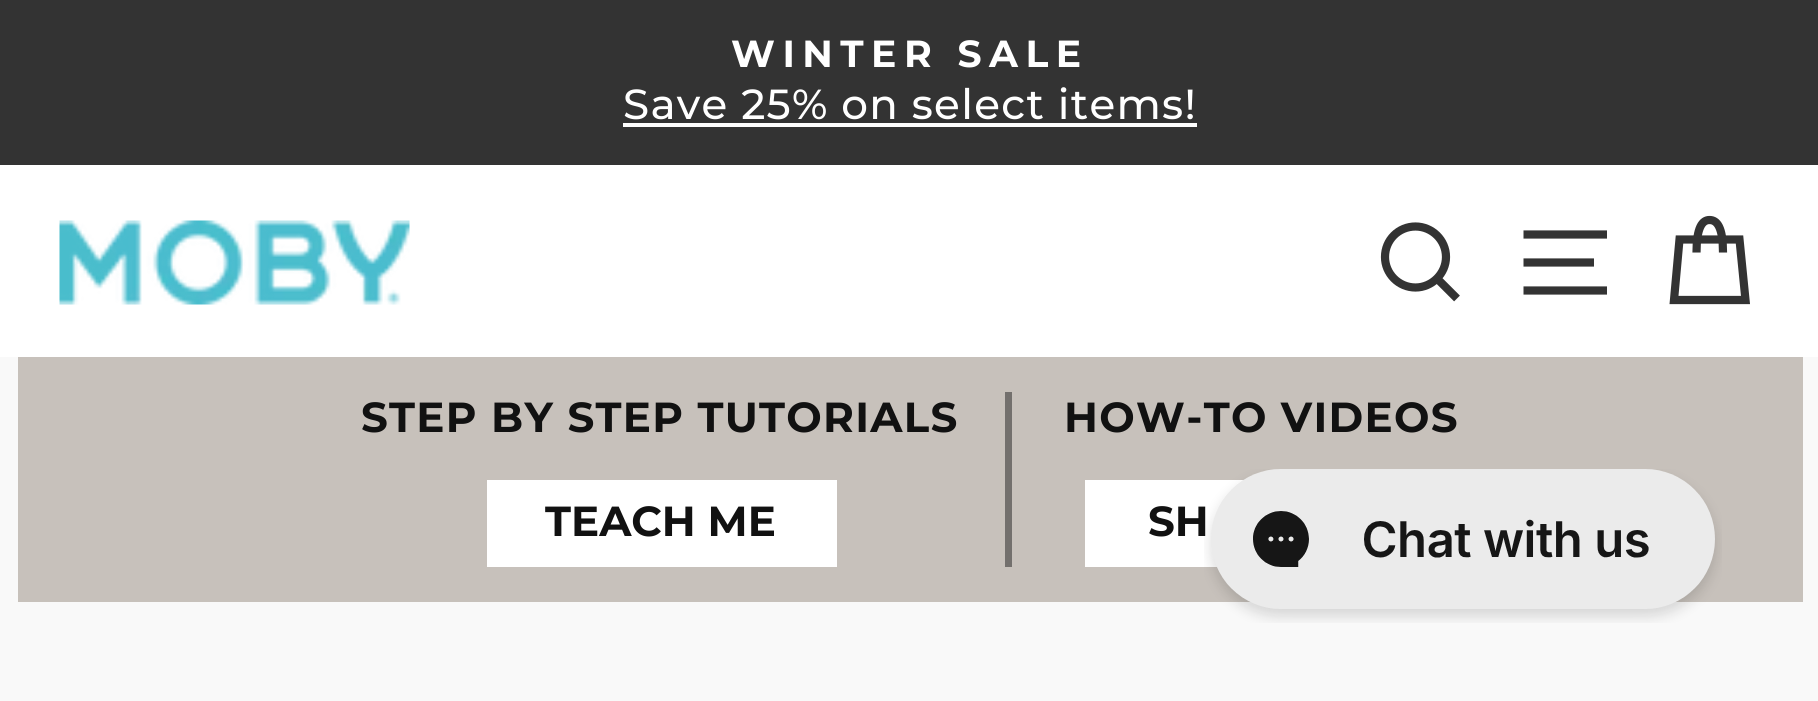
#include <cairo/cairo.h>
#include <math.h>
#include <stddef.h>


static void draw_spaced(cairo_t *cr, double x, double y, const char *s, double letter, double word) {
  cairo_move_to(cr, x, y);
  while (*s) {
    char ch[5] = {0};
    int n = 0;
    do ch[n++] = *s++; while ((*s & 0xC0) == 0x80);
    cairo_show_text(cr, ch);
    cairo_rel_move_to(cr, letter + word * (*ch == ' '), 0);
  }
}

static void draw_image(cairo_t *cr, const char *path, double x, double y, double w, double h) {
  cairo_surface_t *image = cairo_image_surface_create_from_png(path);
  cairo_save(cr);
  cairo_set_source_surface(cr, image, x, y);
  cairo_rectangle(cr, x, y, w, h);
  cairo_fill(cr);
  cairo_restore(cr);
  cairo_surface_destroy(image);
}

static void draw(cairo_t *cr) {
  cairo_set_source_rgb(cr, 249 / 255.0, 249 / 255.0, 249 / 255.0);
  cairo_paint(cr);
  cairo_set_source_rgb(cr, 51 / 255.0, 51 / 255.0, 51 / 255.0);
  cairo_rectangle(cr, 0, 0, 1818, 165);
  cairo_fill(cr);
  cairo_set_source_rgb(cr, 1, 1, 1);
  cairo_rectangle(cr, 623, 123, 574, 4);
  cairo_fill(cr);
  cairo_rectangle(cr, 0, 165, 1818, 192);
  cairo_fill(cr);
  draw_image(cr, "images/1.png", 59, 220, 351, 85);
  cairo_new_path(cr);
  cairo_move_to(cr, 1446, 257);
  cairo_curve_to(cr, 1446, 273.5, 1432, 287.5, 1415.5, 287.5);
  cairo_curve_to(cr, 1398.5, 287.5, 1385, 273.5, 1385, 257);
  cairo_curve_to(cr, 1385, 240, 1398.5, 226.5, 1415.5, 226.5);
  cairo_curve_to(cr, 1432, 226.5, 1446, 240, 1446, 257);
  cairo_close_path(cr);
  cairo_move_to(cr, 1457, 298.5);
  cairo_line_to(cr, 1437.5, 279);
  cairo_set_source_rgb(cr, 51 / 255.0, 51 / 255.0, 51 / 255.0);
  cairo_set_line_width(cr, 8.2);
  cairo_stroke(cr);
  cairo_new_path(cr);
  cairo_move_to(cr, 1523.5, 234.5);
  cairo_line_to(cr, 1607, 234.5);
  cairo_move_to(cr, 1523.5, 262.5);
  cairo_line_to(cr, 1594, 262.5);
  cairo_move_to(cr, 1523.5, 290.5);
  cairo_line_to(cr, 1607, 290.5);
  cairo_stroke(cr);
  cairo_new_path(cr);
  cairo_move_to(cr, 1696.5, 252.5);
  cairo_curve_to(cr, 1696.5, 227, 1702.5, 220, 1709.5, 220);
  cairo_curve_to(cr, 1717, 220, 1723, 227, 1723, 252.5);
  cairo_stroke(cr);
  cairo_new_path(cr);
  cairo_move_to(cr, 1679.5, 239.5);
  cairo_line_to(cr, 1739.5, 239.5);
  cairo_line_to(cr, 1745.5, 300);
  cairo_line_to(cr, 1674, 300);
  cairo_close_path(cr);
  cairo_stroke(cr);
  cairo_set_source_rgb(cr, 199 / 255.0, 193 / 255.0, 187 / 255.0);
  cairo_rectangle(cr, 18, 357, 1785, 245);
  cairo_fill(cr);
  cairo_set_source_rgb(cr, 115 / 255.0, 112 / 255.0, 109 / 255.0);
  cairo_rectangle(cr, 1005, 392, 7, 175);
  cairo_fill(cr);
  cairo_set_source_rgb(cr, 1, 1, 1);
  cairo_rectangle(cr, 487, 480, 350, 87);
  cairo_fill(cr);
  cairo_rectangle(cr, 1085, 480, 159, 87);
  cairo_fill(cr);
  cairo_select_font_face(cr, "Montserrat", CAIRO_FONT_SLANT_NORMAL, CAIRO_FONT_WEIGHT_BOLD);
  cairo_set_font_size(cr, 37.75);
  draw_spaced(cr, 731, 67, "WINTER SALE", 7.5, 0);
  cairo_select_font_face(cr, "Montserrat Medium", CAIRO_FONT_SLANT_NORMAL, CAIRO_FONT_WEIGHT_NORMAL);
  cairo_set_font_size(cr, 42);
  draw_spaced(cr, 623, 119, "Save 25% on select items!", 1.3, 0);
  cairo_select_font_face(cr, "Montserrat", CAIRO_FONT_SLANT_NORMAL, CAIRO_FONT_WEIGHT_BOLD);
  cairo_set_source_rgb(cr, 17 / 255.0, 17 / 255.0, 17 / 255.0);
  draw_spaced(cr, 361, 432, "STEP BY STEP TUTORIALS", 1.3, 0);
  cairo_move_to(cr, 545, 536);
  cairo_show_text(cr, "TEACH ME");
  draw_spaced(cr, 1064, 432, "HOW-TO VIDEOS", 1.3, 0);
  cairo_move_to(cr, 1148, 536);
  cairo_show_text(cr, "SH");
  draw_image(cr, "images/2.png", 1204, 469, 518, 154);
}

int main(void) {
  cairo_surface_t *surface = cairo_image_surface_create(CAIRO_FORMAT_RGB24, 1818, 701);
  cairo_t *cr = cairo_create(surface);
  cairo_font_options_t *options = cairo_font_options_create();
  cairo_font_options_set_hint_metrics(options, CAIRO_HINT_METRICS_OFF);
  cairo_font_options_set_hint_style(options, CAIRO_HINT_STYLE_NONE);
  cairo_set_font_options(cr, options);
  cairo_set_miter_limit(cr, 4);
  draw(cr);
  cairo_surface_write_to_png(surface, "out.png");
  cairo_font_options_destroy(options);
  cairo_destroy(cr);
  cairo_surface_destroy(surface);
  return 0;
}
